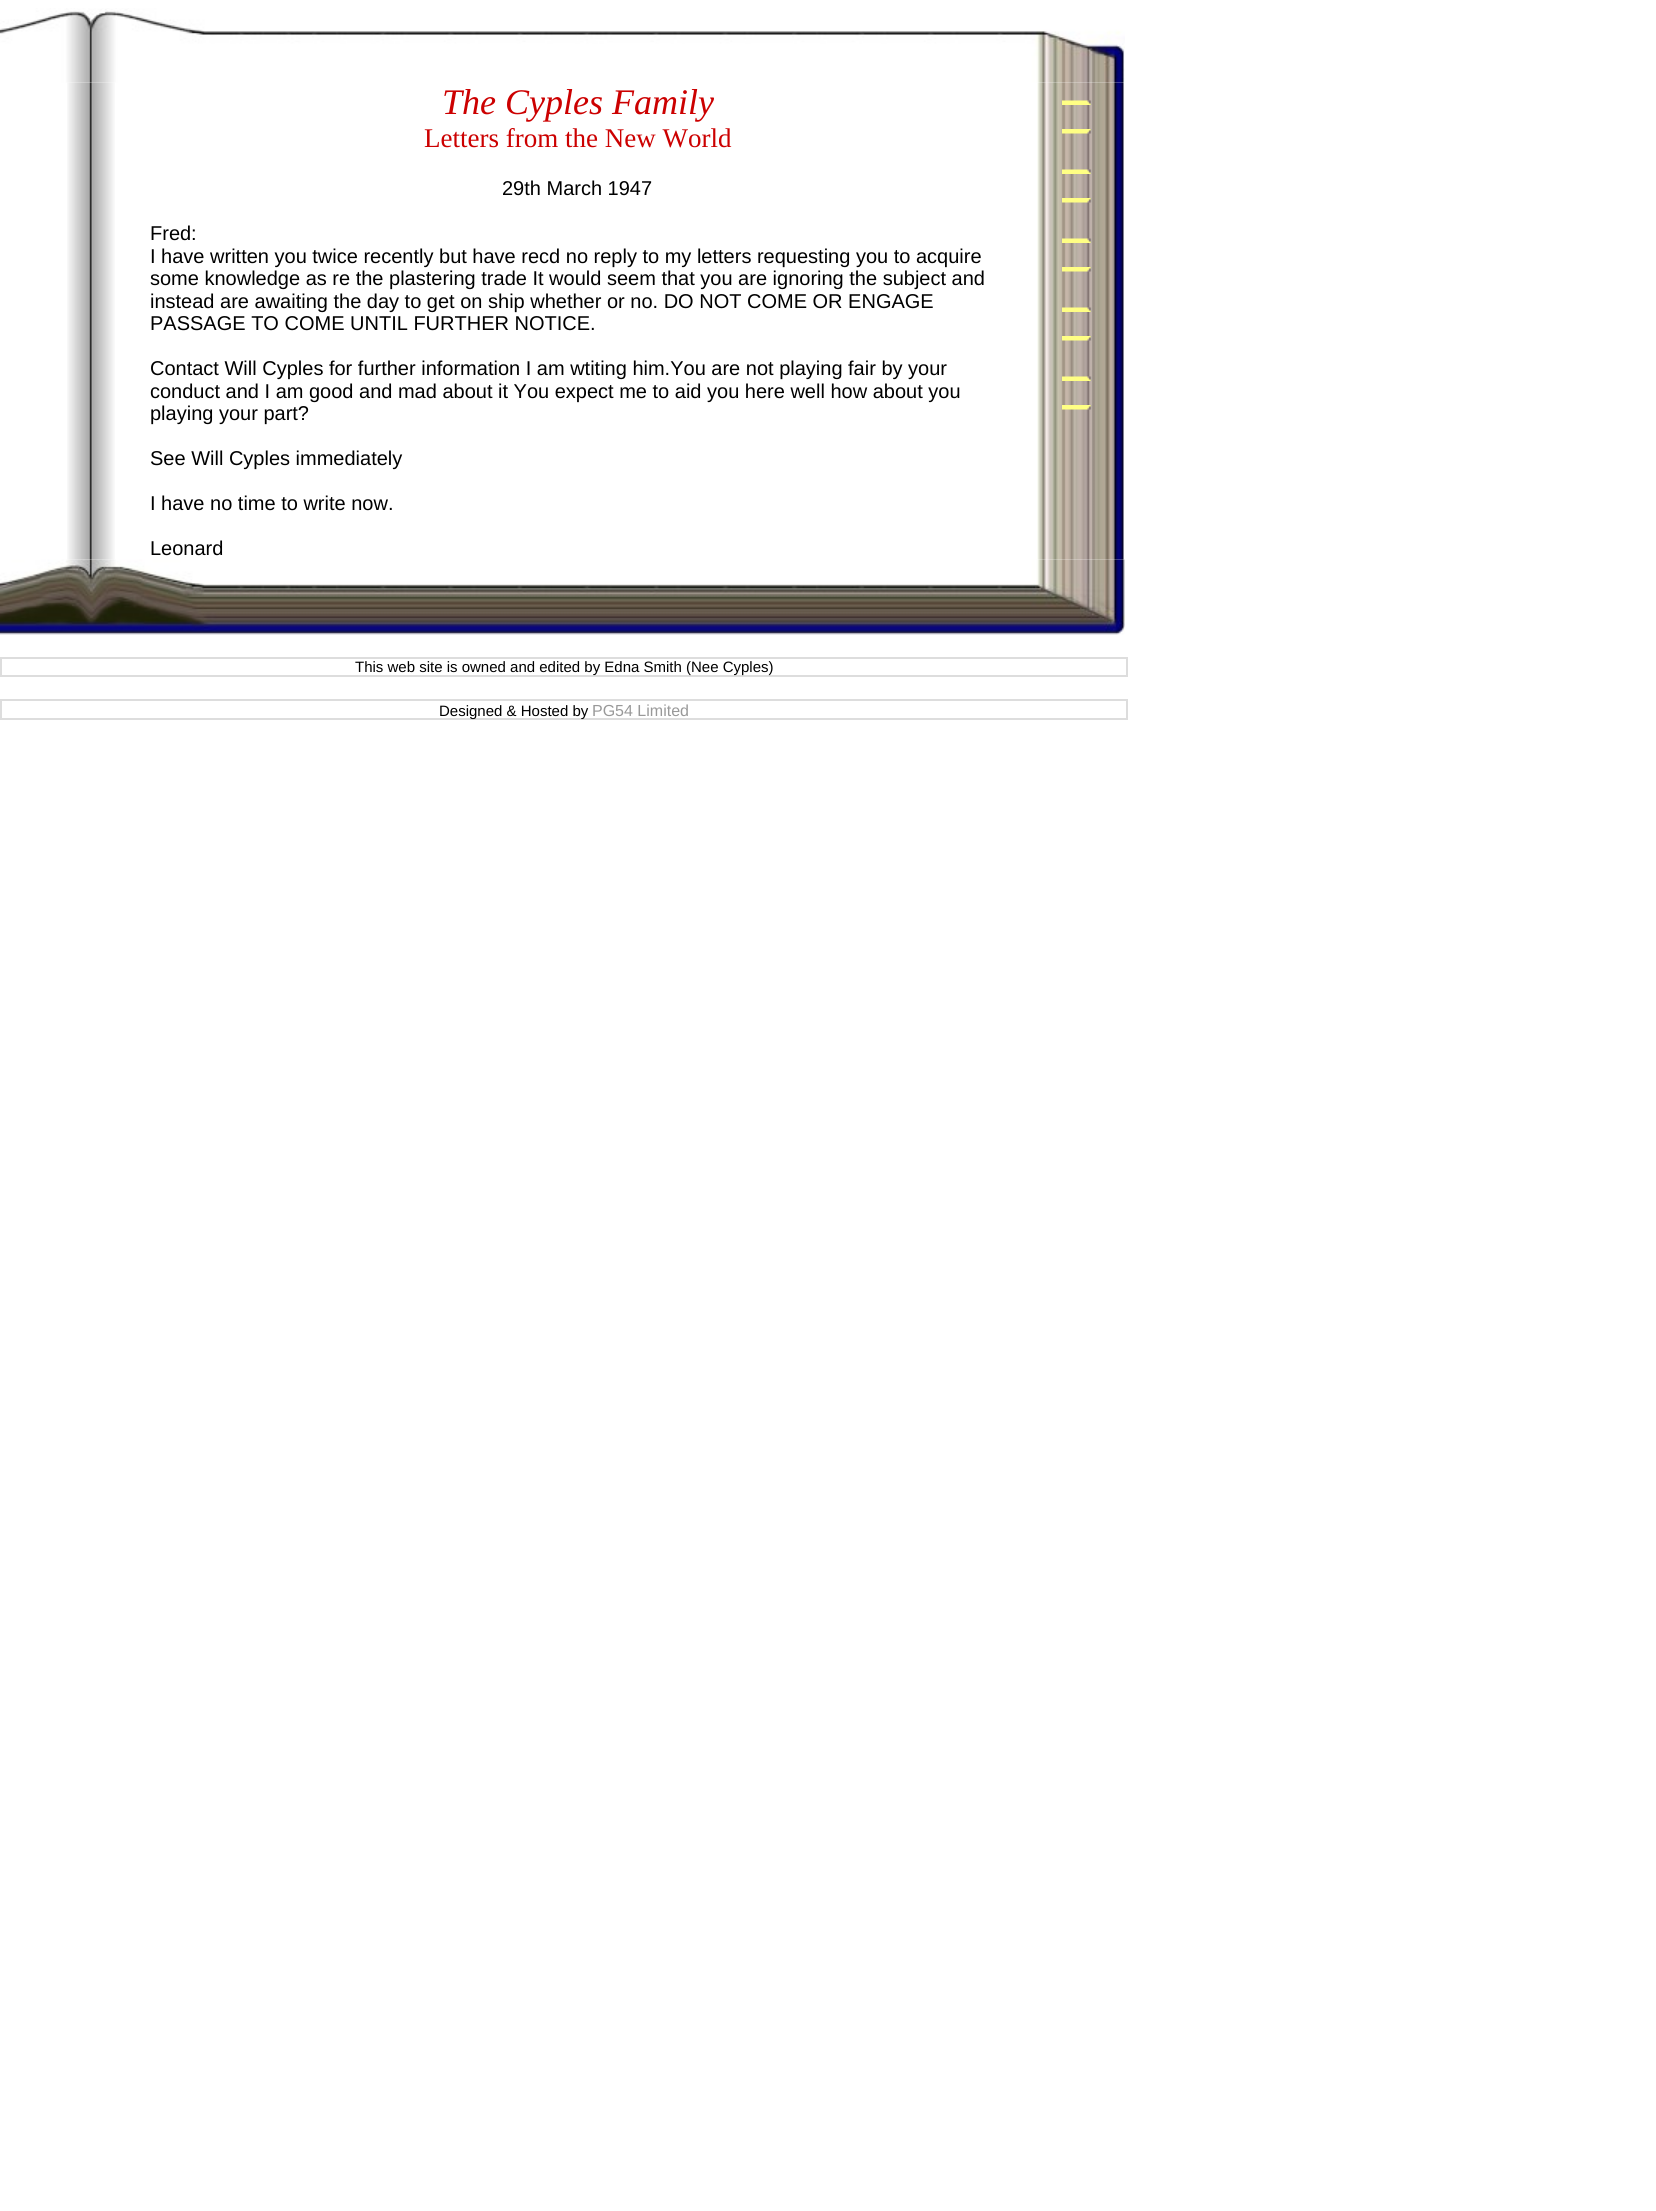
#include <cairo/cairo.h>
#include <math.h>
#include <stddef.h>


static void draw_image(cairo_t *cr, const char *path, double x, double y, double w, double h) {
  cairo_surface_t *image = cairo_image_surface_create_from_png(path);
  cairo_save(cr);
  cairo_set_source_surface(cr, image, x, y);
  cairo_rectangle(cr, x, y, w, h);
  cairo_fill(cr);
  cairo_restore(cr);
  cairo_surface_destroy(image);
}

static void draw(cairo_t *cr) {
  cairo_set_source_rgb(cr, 1, 1, 1);
  cairo_paint(cr);
  draw_image(cr, "images/2.png", 67, 82, 48, 478);
  draw_image(cr, "images/3.png", 1037, 82, 87, 478);
  draw_image(cr, "images/1.png", 0, 8, 1125, 75);
  draw_image(cr, "images/4.png", 1062, 100, 30, 5);
  draw_image(cr, "images/5.png", 1062, 129, 30, 5);
  draw_image(cr, "images/6.png", 1062, 169, 30, 5);
  draw_image(cr, "images/7.png", 1062, 198, 30, 5);
  draw_image(cr, "images/8.png", 1062, 238, 30, 5);
  draw_image(cr, "images/9.png", 1062, 267, 30, 5);
  draw_image(cr, "images/10.png", 1062, 307, 30, 5);
  draw_image(cr, "images/9.png", 1062, 336, 30, 5);
  draw_image(cr, "images/10.png", 1062, 376, 30, 5);
  draw_image(cr, "images/9.png", 1062, 405, 30, 5);
  draw_image(cr, "images/11.png", 0, 559, 1125, 76);
  cairo_rectangle(cr, 1, 658, 1126, 18);
  cairo_set_source_rgb(cr, 221 / 255.0, 221 / 255.0, 221 / 255.0);
  cairo_stroke(cr);
  cairo_rectangle(cr, 1, 700, 1126, 19);
  cairo_stroke(cr);
  cairo_select_font_face(cr, "Liberation Serif", CAIRO_FONT_SLANT_ITALIC, CAIRO_FONT_WEIGHT_NORMAL);
  cairo_set_font_size(cr, 36);
  cairo_set_source_rgb(cr, 204 / 255.0, 0, 0);
  cairo_move_to(cr, 442, 114);
  cairo_show_text(cr, "The Cyples Family");
  cairo_select_font_face(cr, "Liberation Serif", CAIRO_FONT_SLANT_NORMAL, CAIRO_FONT_WEIGHT_NORMAL);
  cairo_set_font_size(cr, 27);
  cairo_move_to(cr, 424, 147);
  cairo_show_text(cr, "Letters from the New World");
  cairo_select_font_face(cr, "Liberation Sans", CAIRO_FONT_SLANT_NORMAL, CAIRO_FONT_WEIGHT_NORMAL);
  cairo_set_font_size(cr, 20);
  cairo_set_source_rgb(cr, 0, 0, 0);
  cairo_move_to(cr, 502, 195);
  cairo_show_text(cr, "29th March 1947");
  cairo_move_to(cr, 150, 240);
  cairo_show_text(cr, "Fred:");
  cairo_move_to(cr, 150, 263);
  cairo_show_text(cr, "I have written you twice recently but have recd no reply to my letters requesting you to acquire");
  cairo_move_to(cr, 150, 285);
  cairo_show_text(cr, "some knowledge as re the plastering trade It would seem that you are ignoring the subject and");
  cairo_move_to(cr, 150, 308);
  cairo_show_text(cr, "instead are awaiting the day to get on ship whether or no. DO NOT COME OR ENGAGE");
  cairo_move_to(cr, 150, 330);
  cairo_show_text(cr, "PASSAGE TO COME UNTIL FURTHER NOTICE.");
  cairo_move_to(cr, 150, 375);
  cairo_show_text(cr, "Contact Will Cyples for further information I am wtiting him.You are not playing fair by your");
  cairo_move_to(cr, 150, 398);
  cairo_show_text(cr, "conduct and I am good and mad about it You expect me to aid you here well how about you");
  cairo_move_to(cr, 150, 420);
  cairo_show_text(cr, "playing your part?");
  cairo_move_to(cr, 150, 465);
  cairo_show_text(cr, "See Will Cyples immediately");
  cairo_move_to(cr, 150, 510);
  cairo_show_text(cr, "I have no time to write now.");
  cairo_move_to(cr, 150, 555);
  cairo_show_text(cr, "Leonard");
  cairo_set_font_size(cr, 15);
  cairo_move_to(cr, 355, 672);
  cairo_show_text(cr, "This web site is owned and edited by Edna Smith (Nee Cyples)");
  cairo_move_to(cr, 439, 716);
  cairo_show_text(cr, "Designed & Hosted by");
  cairo_set_font_size(cr, 16);
  cairo_set_source_rgb(cr, 153 / 255.0, 153 / 255.0, 153 / 255.0);
  cairo_move_to(cr, 592, 716);
  cairo_show_text(cr, "PG54 Limited");
}

int main(void) {
  cairo_surface_t *surface = cairo_image_surface_create(CAIRO_FORMAT_RGB24, 1656, 2211);
  cairo_t *cr = cairo_create(surface);
  cairo_font_options_t *options = cairo_font_options_create();
  cairo_font_options_set_hint_metrics(options, CAIRO_HINT_METRICS_OFF);
  cairo_font_options_set_hint_style(options, CAIRO_HINT_STYLE_NONE);
  cairo_set_font_options(cr, options);
  cairo_set_miter_limit(cr, 4);
  draw(cr);
  cairo_surface_write_to_png(surface, "out.png");
  cairo_font_options_destroy(options);
  cairo_destroy(cr);
  cairo_surface_destroy(surface);
  return 0;
}
